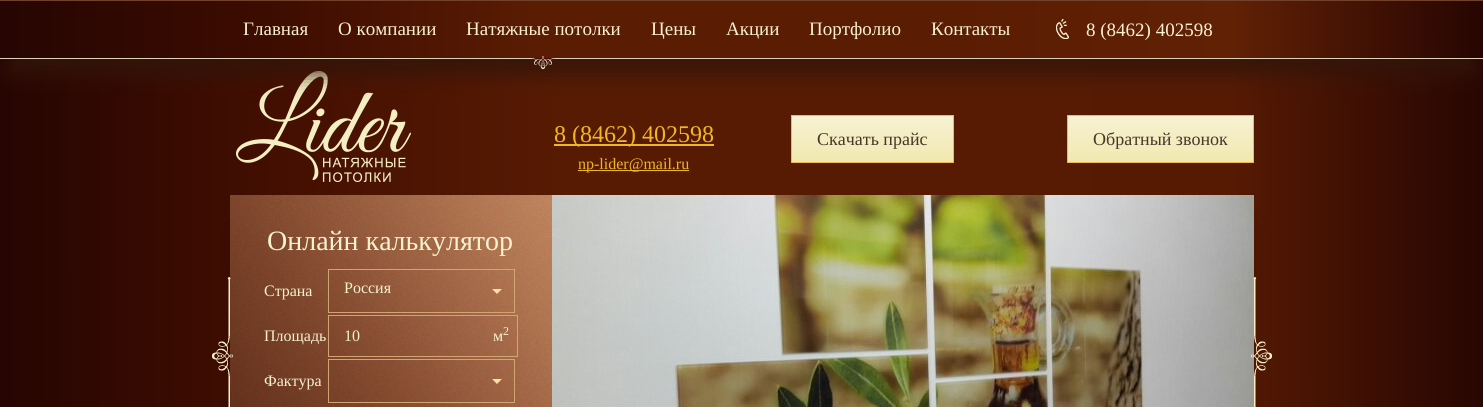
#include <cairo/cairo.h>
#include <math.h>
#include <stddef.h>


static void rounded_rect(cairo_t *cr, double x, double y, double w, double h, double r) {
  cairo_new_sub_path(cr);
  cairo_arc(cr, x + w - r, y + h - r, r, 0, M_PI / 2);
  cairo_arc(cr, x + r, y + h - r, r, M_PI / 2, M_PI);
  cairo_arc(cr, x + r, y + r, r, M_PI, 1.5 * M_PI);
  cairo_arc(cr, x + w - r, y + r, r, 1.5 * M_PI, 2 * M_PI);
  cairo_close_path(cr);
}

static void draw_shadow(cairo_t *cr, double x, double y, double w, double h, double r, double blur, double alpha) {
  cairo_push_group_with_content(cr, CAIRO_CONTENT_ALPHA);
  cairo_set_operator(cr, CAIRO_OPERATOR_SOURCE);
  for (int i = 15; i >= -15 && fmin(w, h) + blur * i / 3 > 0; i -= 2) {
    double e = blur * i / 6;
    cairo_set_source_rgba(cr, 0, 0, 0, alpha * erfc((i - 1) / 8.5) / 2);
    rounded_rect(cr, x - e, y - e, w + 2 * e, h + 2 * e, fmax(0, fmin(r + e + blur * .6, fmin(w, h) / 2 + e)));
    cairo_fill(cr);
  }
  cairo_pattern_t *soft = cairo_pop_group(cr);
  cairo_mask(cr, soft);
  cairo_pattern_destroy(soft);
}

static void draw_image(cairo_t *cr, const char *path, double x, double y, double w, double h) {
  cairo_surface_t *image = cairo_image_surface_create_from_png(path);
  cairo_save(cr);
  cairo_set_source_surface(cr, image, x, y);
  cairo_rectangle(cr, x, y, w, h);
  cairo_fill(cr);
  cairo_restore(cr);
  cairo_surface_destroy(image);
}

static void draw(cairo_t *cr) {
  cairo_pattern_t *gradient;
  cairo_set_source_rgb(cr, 1, 1, 1);
  cairo_paint(cr);
  gradient = cairo_pattern_create_linear(0, 204, 1483, 203);
  cairo_pattern_add_color_stop_rgba(gradient, 0, 38 / 255.0, 5 / 255.0, 2 / 255.0, 1);
  cairo_pattern_add_color_stop_rgba(gradient, 0.19, 68 / 255.0, 15 / 255.0, 1 / 255.0, 1);
  cairo_pattern_add_color_stop_rgba(gradient, 0.38, 87 / 255.0, 27 / 255.0, 3 / 255.0, 1);
  cairo_pattern_add_color_stop_rgba(gradient, 0.64, 87 / 255.0, 27 / 255.0, 3 / 255.0, 1);
  cairo_pattern_add_color_stop_rgba(gradient, 0.83, 86 / 255.0, 26 / 255.0, 3 / 255.0, 1);
  cairo_pattern_add_color_stop_rgba(gradient, 1, 40 / 255.0, 6 / 255.0, 2 / 255.0, 1);
  cairo_set_source(cr, gradient);
  cairo_pattern_destroy(gradient);
  cairo_rectangle(cr, 0, 59, 1483, 348);
  cairo_fill(cr);
  draw_image(cr, "images/3.png", 236, 71, 175, 111);
  cairo_set_source_rgb(cr, 50 / 255.0, 21 / 255.0, 10 / 255.0);
  draw_shadow(cr, 9, 34, 1465, 41, 0, 10, 0.85);
  gradient = cairo_pattern_create_linear(0, 30, 1483, 29);
  cairo_pattern_add_color_stop_rgba(gradient, 0, 38 / 255.0, 5 / 255.0, 2 / 255.0, 1);
  cairo_pattern_add_color_stop_rgba(gradient, 0.18, 61 / 255.0, 12 / 255.0, 1 / 255.0, 1);
  cairo_pattern_add_color_stop_rgba(gradient, 0.36, 90 / 255.0, 28 / 255.0, 3 / 255.0, 1);
  cairo_pattern_add_color_stop_rgba(gradient, 0.64, 90 / 255.0, 28 / 255.0, 3 / 255.0, 1);
  cairo_pattern_add_color_stop_rgba(gradient, 0.83, 97 / 255.0, 33 / 255.0, 5 / 255.0, 1);
  cairo_pattern_add_color_stop_rgba(gradient, 1, 39 / 255.0, 5 / 255.0, 2 / 255.0, 1);
  cairo_set_source(cr, gradient);
  cairo_pattern_destroy(gradient);
  cairo_rectangle(cr, 0, 1, 1483, 57);
  cairo_fill(cr);
  cairo_set_source_rgb(cr, 113 / 255.0, 65 / 255.0, 43 / 255.0);
  cairo_rectangle(cr, 0, 0, 1483, 1);
  cairo_fill(cr);
  cairo_set_source_rgb(cr, 222 / 255.0, 209 / 255.0, 186 / 255.0);
  cairo_rectangle(cr, 0, 58, 1483, 1);
  cairo_fill(cr);
  draw_image(cr, "images/1.png", 531, 56, 24, 13);
  draw_image(cr, "images/2.png", 1056, 19, 13, 20);
  cairo_set_source_rgb(cr, 240 / 255.0, 182 / 255.0, 35 / 255.0);
  cairo_rectangle(cr, 554, 144, 160, 2);
  cairo_fill(cr);
  cairo_rectangle(cr, 578, 170, 111, 1);
  cairo_fill(cr);
  gradient = cairo_pattern_create_linear(873, 116, 873, 162);
  cairo_pattern_add_color_stop_rgba(gradient, 0, 247 / 255.0, 242 / 255.0, 211 / 255.0, 1);
  cairo_pattern_add_color_stop_rgba(gradient, 1, 241 / 255.0, 232 / 255.0, 175 / 255.0, 1);
  cairo_set_source(cr, gradient);
  cairo_pattern_destroy(gradient);
  cairo_rectangle(cr, 792, 116, 161, 46);
  cairo_fill(cr);
  cairo_rectangle(cr, 791.5, 115.5, 162, 47);
  cairo_set_source_rgb(cr, 246 / 255.0, 183 / 255.0, 78 / 255.0);
  cairo_set_line_width(cr, 1);
  cairo_stroke(cr);
  gradient = cairo_pattern_create_linear(1161, 116, 1161, 162);
  cairo_pattern_add_color_stop_rgba(gradient, 0, 247 / 255.0, 242 / 255.0, 211 / 255.0, 1);
  cairo_pattern_add_color_stop_rgba(gradient, 1, 241 / 255.0, 232 / 255.0, 175 / 255.0, 1);
  cairo_set_source(cr, gradient);
  cairo_pattern_destroy(gradient);
  cairo_rectangle(cr, 1068, 116, 185, 46);
  cairo_fill(cr);
  cairo_rectangle(cr, 1067.5, 115.5, 186, 47);
  cairo_set_source_rgb(cr, 246 / 255.0, 183 / 255.0, 78 / 255.0);
  cairo_stroke(cr);
  cairo_set_source_rgb(cr, 36 / 255.0, 5 / 255.0, 0);
  draw_shadow(cr, 239, 229, 1006, 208, 0, 10, 0.85);
  draw_image(cr, "images/4.png", 230, 195, 322, 212);
  draw_image(cr, "images/5.png", 212, 277, 21, 130);
  cairo_rectangle(cr, 328.5, 269.5, 186, 43);
  cairo_set_source_rgb(cr, 208 / 255.0, 164 / 255.0, 115 / 255.0);
  cairo_stroke(cr);
  cairo_set_source_rgb(cr, 249 / 255.0, 223 / 255.0, 165 / 255.0);
  cairo_new_path(cr);
  cairo_move_to(cr, 492, 289);
  cairo_line_to(cr, 502, 289);
  cairo_line_to(cr, 497, 294);
  cairo_close_path(cr);
  cairo_fill(cr);
  cairo_rectangle(cr, 328.5, 315.5, 189, 41);
  cairo_set_source_rgb(cr, 208 / 255.0, 164 / 255.0, 115 / 255.0);
  cairo_stroke(cr);
  cairo_rectangle(cr, 328.5, 359.5, 186, 43);
  cairo_stroke(cr);
  cairo_set_source_rgb(cr, 249 / 255.0, 223 / 255.0, 165 / 255.0);
  cairo_new_path(cr);
  cairo_move_to(cr, 492, 379);
  cairo_line_to(cr, 502, 379);
  cairo_line_to(cr, 497, 384);
  cairo_close_path(cr);
  cairo_fill(cr);
  draw_image(cr, "images/6.png", 552, 195, 702, 212);
  draw_image(cr, "images/7.png", 1251, 277, 21, 130);
  cairo_select_font_face(cr, "Liberation Serif", CAIRO_FONT_SLANT_NORMAL, CAIRO_FONT_WEIGHT_NORMAL);
  cairo_set_font_size(cr, 19);
  cairo_set_source_rgb(cr, 246 / 255.0, 241 / 255.0, 207 / 255.0);
  cairo_move_to(cr, 243, 35);
  cairo_show_text(cr, "Главная");
  cairo_move_to(cr, 338, 35);
  cairo_show_text(cr, "О компании");
  cairo_move_to(cr, 466, 35);
  cairo_show_text(cr, "Натяжные потолки");
  cairo_move_to(cr, 651, 35);
  cairo_show_text(cr, "Цены");
  cairo_move_to(cr, 726, 35);
  cairo_show_text(cr, "Акции");
  cairo_move_to(cr, 809, 35);
  cairo_show_text(cr, "Портфолио");
  cairo_move_to(cr, 931, 35);
  cairo_show_text(cr, "Контакты");
  cairo_move_to(cr, 1086, 36);
  cairo_show_text(cr, "8 (8462) 402598");
  cairo_set_font_size(cr, 24);
  cairo_set_source_rgb(cr, 240 / 255.0, 182 / 255.0, 35 / 255.0);
  cairo_move_to(cr, 554, 142);
  cairo_show_text(cr, "8 (8462) 402598");
  cairo_set_font_size(cr, 16);
  cairo_move_to(cr, 578, 169);
  cairo_show_text(cr, "np-lider@mail.ru");
  cairo_set_font_size(cr, 18);
  cairo_set_source_rgb(cr, 70 / 255.0, 55 / 255.0, 41 / 255.0);
  cairo_move_to(cr, 817, 145);
  cairo_show_text(cr, "Скачать прайс");
  cairo_move_to(cr, 1093, 145);
  cairo_show_text(cr, "Обратный звонок");
  cairo_set_font_size(cr, 28);
  cairo_set_source_rgb(cr, 246 / 255.0, 241 / 255.0, 207 / 255.0);
  cairo_move_to(cr, 267, 250);
  cairo_show_text(cr, "Онлайн калькулятор");
  cairo_set_font_size(cr, 16);
  cairo_move_to(cr, 264, 296);
  cairo_show_text(cr, "Страна");
  cairo_move_to(cr, 344, 293);
  cairo_show_text(cr, "Россия");
  cairo_move_to(cr, 264, 341);
  cairo_show_text(cr, "Площадь");
  cairo_move_to(cr, 344, 341);
  cairo_show_text(cr, "10");
  cairo_move_to(cr, 493, 341);
  cairo_show_text(cr, "м");
  cairo_set_font_size(cr, 12);
  cairo_move_to(cr, 503, 335);
  cairo_show_text(cr, "2");
  cairo_set_font_size(cr, 16);
  cairo_move_to(cr, 264, 386);
  cairo_show_text(cr, "Фактура");
}

int main(void) {
  cairo_surface_t *surface = cairo_image_surface_create(CAIRO_FORMAT_RGB24, 1483, 407);
  cairo_t *cr = cairo_create(surface);
  cairo_font_options_t *options = cairo_font_options_create();
  cairo_font_options_set_hint_metrics(options, CAIRO_HINT_METRICS_OFF);
  cairo_font_options_set_hint_style(options, CAIRO_HINT_STYLE_NONE);
  cairo_set_font_options(cr, options);
  cairo_set_miter_limit(cr, 4);
  draw(cr);
  cairo_surface_write_to_png(surface, "out.png");
  cairo_font_options_destroy(options);
  cairo_destroy(cr);
  cairo_surface_destroy(surface);
  return 0;
}
